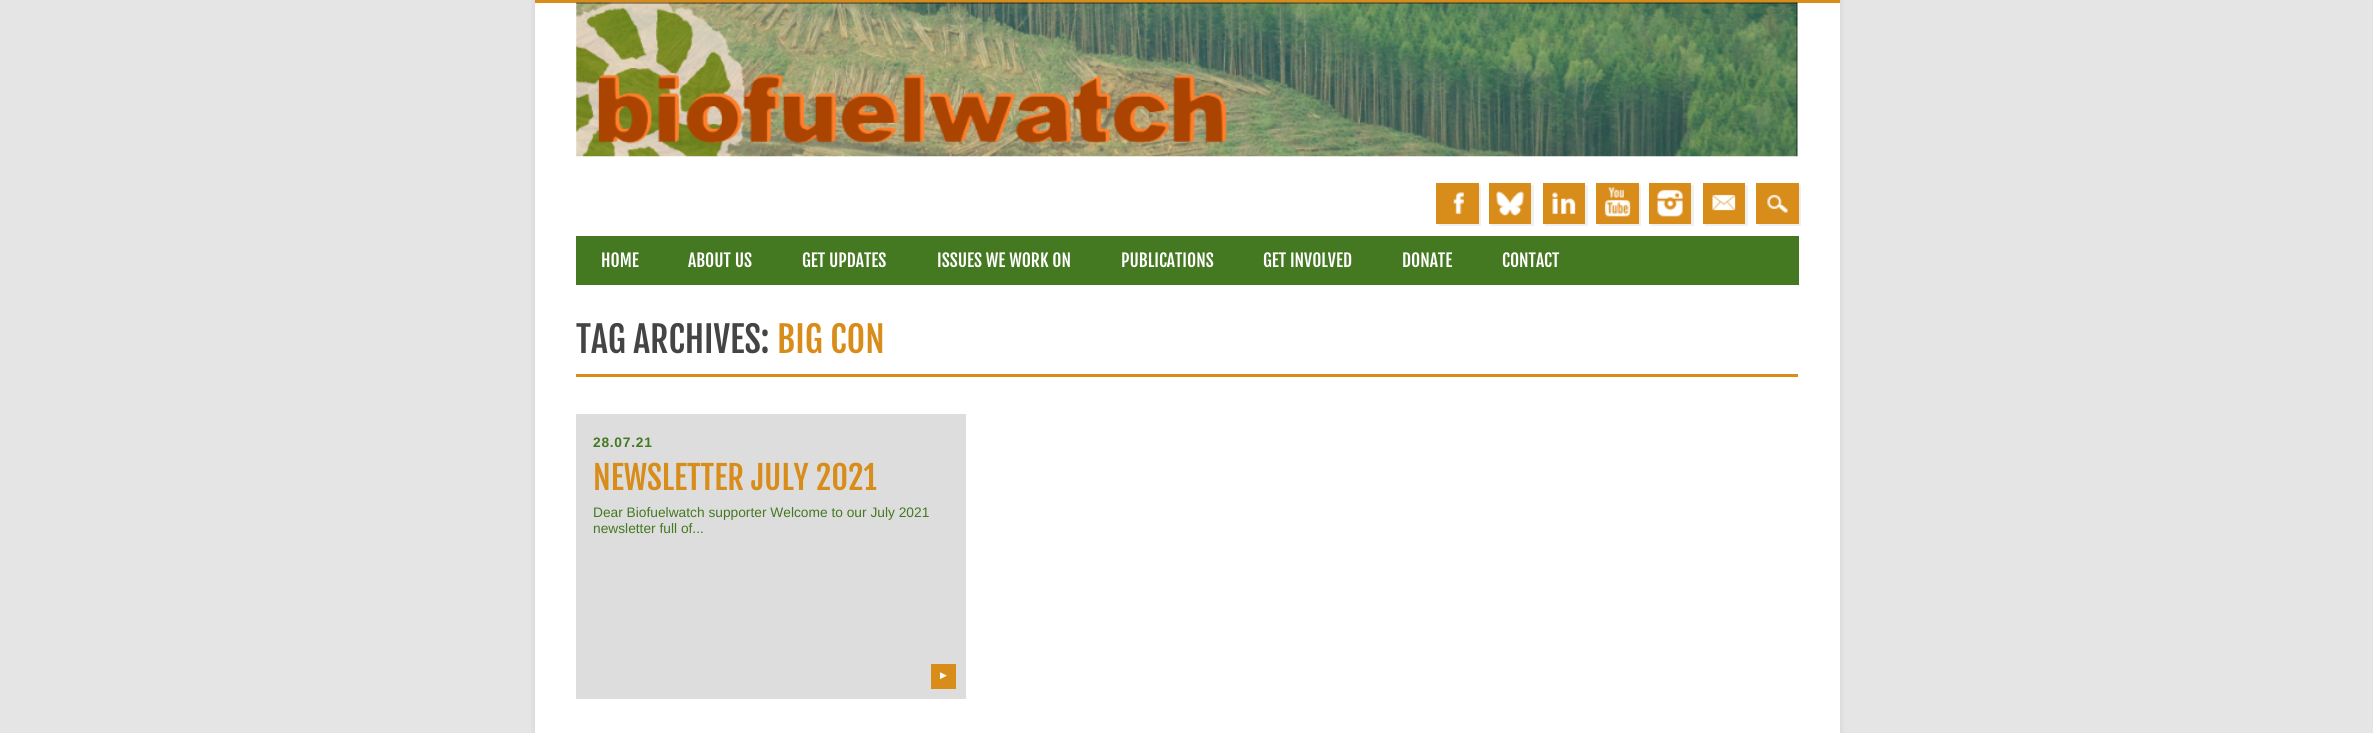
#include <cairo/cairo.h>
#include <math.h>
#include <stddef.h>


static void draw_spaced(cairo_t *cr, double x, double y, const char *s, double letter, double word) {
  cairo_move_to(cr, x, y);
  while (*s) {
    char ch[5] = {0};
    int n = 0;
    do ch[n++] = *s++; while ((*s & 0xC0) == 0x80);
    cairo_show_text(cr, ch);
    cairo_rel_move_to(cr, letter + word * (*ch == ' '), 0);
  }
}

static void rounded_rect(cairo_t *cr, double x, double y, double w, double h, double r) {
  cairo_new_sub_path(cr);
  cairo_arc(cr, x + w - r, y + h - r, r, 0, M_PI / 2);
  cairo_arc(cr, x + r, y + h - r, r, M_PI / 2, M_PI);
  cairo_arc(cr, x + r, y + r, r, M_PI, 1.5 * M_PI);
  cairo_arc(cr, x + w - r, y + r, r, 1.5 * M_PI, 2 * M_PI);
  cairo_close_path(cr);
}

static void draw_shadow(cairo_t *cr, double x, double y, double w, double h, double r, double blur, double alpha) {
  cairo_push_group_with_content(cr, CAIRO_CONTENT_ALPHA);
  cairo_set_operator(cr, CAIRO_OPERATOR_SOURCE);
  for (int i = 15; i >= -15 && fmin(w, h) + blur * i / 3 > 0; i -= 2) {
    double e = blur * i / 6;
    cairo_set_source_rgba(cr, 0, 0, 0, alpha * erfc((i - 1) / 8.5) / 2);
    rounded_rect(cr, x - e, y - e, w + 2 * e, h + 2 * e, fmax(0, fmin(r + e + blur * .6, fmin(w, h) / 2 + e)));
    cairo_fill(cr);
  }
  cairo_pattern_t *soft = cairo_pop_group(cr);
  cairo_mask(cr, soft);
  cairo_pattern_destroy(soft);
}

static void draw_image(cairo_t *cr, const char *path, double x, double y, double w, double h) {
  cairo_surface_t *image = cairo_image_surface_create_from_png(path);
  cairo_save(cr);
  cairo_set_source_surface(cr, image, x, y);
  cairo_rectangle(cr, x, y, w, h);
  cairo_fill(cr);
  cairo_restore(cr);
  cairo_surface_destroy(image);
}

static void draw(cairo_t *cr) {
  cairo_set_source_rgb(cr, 229 / 255.0, 229 / 255.0, 229 / 255.0);
  cairo_paint(cr);
  cairo_set_source_rgb(cr, 208 / 255.0, 208 / 255.0, 208 / 255.0);
  draw_shadow(cr, 535, 0, 1305, 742, 0, 3, 1);
  cairo_set_source_rgb(cr, 1, 1, 1);
  cairo_rectangle(cr, 535, 3, 1305, 730);
  cairo_fill(cr);
  cairo_set_source_rgb(cr, 216 / 255.0, 140 / 255.0, 26 / 255.0);
  cairo_rectangle(cr, 535, 0, 1305, 3);
  cairo_fill(cr);
  draw_image(cr, "images/1.png", 576, 2, 1222, 155);
  cairo_set_source_rgb(cr, 240 / 255.0, 240 / 255.0, 240 / 255.0);
  cairo_new_path(cr);
  cairo_move_to(cr, 1439, 224);
  cairo_line_to(cr, 1439, 226);
  cairo_line_to(cr, 1481, 226);
  cairo_line_to(cr, 1481, 185);
  cairo_line_to(cr, 1479, 185);
  cairo_line_to(cr, 1479, 224);
  cairo_close_path(cr);
  cairo_fill(cr);
  cairo_set_source_rgb(cr, 216 / 255.0, 140 / 255.0, 26 / 255.0);
  cairo_rectangle(cr, 1436, 183, 43, 41);
  cairo_fill(cr);
  draw_image(cr, "images/2.png", 1453, 192, 11, 22);
  cairo_set_source_rgb(cr, 240 / 255.0, 240 / 255.0, 240 / 255.0);
  cairo_new_path(cr);
  cairo_move_to(cr, 1491, 224);
  cairo_line_to(cr, 1491, 226);
  cairo_line_to(cr, 1534, 226);
  cairo_line_to(cr, 1534, 185);
  cairo_line_to(cr, 1531, 185);
  cairo_line_to(cr, 1531, 224);
  cairo_close_path(cr);
  cairo_fill(cr);
  cairo_set_source_rgb(cr, 216 / 255.0, 140 / 255.0, 26 / 255.0);
  cairo_rectangle(cr, 1489, 183, 42, 41);
  cairo_fill(cr);
  draw_image(cr, "images/3.png", 1496, 191, 28, 26);
  cairo_set_source_rgb(cr, 240 / 255.0, 240 / 255.0, 240 / 255.0);
  cairo_new_path(cr);
  cairo_move_to(cr, 1545, 224);
  cairo_line_to(cr, 1545, 226);
  cairo_line_to(cr, 1588, 226);
  cairo_line_to(cr, 1588, 185);
  cairo_line_to(cr, 1585, 185);
  cairo_line_to(cr, 1585, 224);
  cairo_close_path(cr);
  cairo_fill(cr);
  cairo_set_source_rgb(cr, 216 / 255.0, 140 / 255.0, 26 / 255.0);
  cairo_rectangle(cr, 1543, 183, 42, 41);
  cairo_fill(cr);
  draw_image(cr, "images/4.png", 1552, 192, 24, 22);
  cairo_set_source_rgb(cr, 240 / 255.0, 240 / 255.0, 240 / 255.0);
  cairo_new_path(cr);
  cairo_move_to(cr, 1599, 224);
  cairo_line_to(cr, 1599, 226);
  cairo_line_to(cr, 1641, 226);
  cairo_line_to(cr, 1641, 185);
  cairo_line_to(cr, 1639, 185);
  cairo_line_to(cr, 1639, 224);
  cairo_close_path(cr);
  cairo_fill(cr);
  cairo_set_source_rgb(cr, 216 / 255.0, 140 / 255.0, 26 / 255.0);
  cairo_rectangle(cr, 1596, 183, 43, 41);
  cairo_fill(cr);
  draw_image(cr, "images/5.png", 1604, 187, 27, 30);
  cairo_set_source_rgb(cr, 240 / 255.0, 240 / 255.0, 240 / 255.0);
  cairo_new_path(cr);
  cairo_move_to(cr, 1651, 224);
  cairo_line_to(cr, 1651, 226);
  cairo_line_to(cr, 1694, 226);
  cairo_line_to(cr, 1694, 185);
  cairo_line_to(cr, 1691, 185);
  cairo_line_to(cr, 1691, 224);
  cairo_close_path(cr);
  cairo_fill(cr);
  cairo_set_source_rgb(cr, 216 / 255.0, 140 / 255.0, 26 / 255.0);
  cairo_rectangle(cr, 1649, 183, 42, 41);
  cairo_fill(cr);
  draw_image(cr, "images/6.png", 1657, 189, 26, 28);
  cairo_set_source_rgb(cr, 240 / 255.0, 240 / 255.0, 240 / 255.0);
  cairo_new_path(cr);
  cairo_move_to(cr, 1705, 224);
  cairo_line_to(cr, 1705, 226);
  cairo_line_to(cr, 1748, 226);
  cairo_line_to(cr, 1748, 185);
  cairo_line_to(cr, 1745, 185);
  cairo_line_to(cr, 1745, 224);
  cairo_close_path(cr);
  cairo_fill(cr);
  cairo_set_source_rgb(cr, 216 / 255.0, 140 / 255.0, 26 / 255.0);
  cairo_rectangle(cr, 1703, 183, 42, 41);
  cairo_fill(cr);
  draw_image(cr, "images/7.png", 1712, 194, 24, 17);
  cairo_set_source_rgb(cr, 240 / 255.0, 240 / 255.0, 240 / 255.0);
  cairo_new_path(cr);
  cairo_move_to(cr, 1759, 224);
  cairo_line_to(cr, 1759, 226);
  cairo_line_to(cr, 1801, 226);
  cairo_line_to(cr, 1801, 185);
  cairo_line_to(cr, 1799, 185);
  cairo_line_to(cr, 1799, 224);
  cairo_close_path(cr);
  cairo_fill(cr);
  cairo_set_source_rgb(cr, 216 / 255.0, 140 / 255.0, 26 / 255.0);
  cairo_rectangle(cr, 1756, 183, 43, 41);
  cairo_fill(cr);
  draw_image(cr, "images/8.png", 1767, 194, 21, 19);
  cairo_set_source_rgb(cr, 68 / 255.0, 120 / 255.0, 33 / 255.0);
  cairo_rectangle(cr, 576, 236, 1223, 49);
  cairo_fill(cr);
  cairo_set_source_rgb(cr, 216 / 255.0, 140 / 255.0, 26 / 255.0);
  cairo_rectangle(cr, 576, 374, 1222, 3);
  cairo_fill(cr);
  cairo_set_source_rgb(cr, 221 / 255.0, 221 / 255.0, 221 / 255.0);
  cairo_rectangle(cr, 576, 414, 390, 285);
  cairo_fill(cr);
  cairo_set_source_rgb(cr, 216 / 255.0, 140 / 255.0, 26 / 255.0);
  cairo_rectangle(cr, 931, 664, 25, 25);
  cairo_fill(cr);
  cairo_select_font_face(cr, "Fjalla One", CAIRO_FONT_SLANT_NORMAL, CAIRO_FONT_WEIGHT_NORMAL);
  cairo_set_font_size(cr, 17.5);
  cairo_set_source_rgb(cr, 1, 1, 1);
  cairo_move_to(cr, 601, 267);
  cairo_show_text(cr, "HOME");
  cairo_move_to(cr, 688, 267);
  cairo_show_text(cr, "ABOUT US");
  cairo_move_to(cr, 802, 267);
  cairo_show_text(cr, "GET UPDATES");
  cairo_move_to(cr, 937, 267);
  cairo_show_text(cr, "ISSUES WE WORK ON");
  cairo_move_to(cr, 1121, 267);
  cairo_show_text(cr, "PUBLICATIONS");
  cairo_move_to(cr, 1263, 267);
  cairo_show_text(cr, "GET INVOLVED");
  cairo_move_to(cr, 1402, 267);
  cairo_show_text(cr, "DONATE");
  cairo_move_to(cr, 1502, 267);
  cairo_show_text(cr, "CONTACT");
  cairo_set_font_size(cr, 35.75);
  cairo_set_source_rgb(cr, 68 / 255.0, 68 / 255.0, 68 / 255.0);
  cairo_move_to(cr, 576, 353);
  cairo_show_text(cr, "TAG ARCHIVES:");
  cairo_set_source_rgb(cr, 216 / 255.0, 140 / 255.0, 26 / 255.0);
  cairo_move_to(cr, 777, 353);
  cairo_show_text(cr, "BIG CON");
  cairo_select_font_face(cr, "Liberation Sans", CAIRO_FONT_SLANT_NORMAL, CAIRO_FONT_WEIGHT_BOLD);
  cairo_set_font_size(cr, 13.75);
  cairo_set_source_rgb(cr, 68 / 255.0, 120 / 255.0, 33 / 255.0);
  draw_spaced(cr, 593, 447, "28.07.21", 0.75, 0);
  cairo_select_font_face(cr, "Fjalla One", CAIRO_FONT_SLANT_NORMAL, CAIRO_FONT_WEIGHT_NORMAL);
  cairo_set_font_size(cr, 32.5);
  cairo_set_source_rgb(cr, 216 / 255.0, 140 / 255.0, 26 / 255.0);
  cairo_move_to(cr, 593, 490);
  cairo_show_text(cr, "NEWSLETTER JULY 2021");
  cairo_select_font_face(cr, "Liberation Sans", CAIRO_FONT_SLANT_NORMAL, CAIRO_FONT_WEIGHT_NORMAL);
  cairo_set_font_size(cr, 13.75);
  cairo_set_source_rgb(cr, 68 / 255.0, 120 / 255.0, 33 / 255.0);
  cairo_move_to(cr, 593, 517);
  cairo_show_text(cr, "Dear Biofuelwatch supporter Welcome to our July 2021");
  cairo_move_to(cr, 593, 533);
  cairo_show_text(cr, "newsletter full of...");
  cairo_select_font_face(cr, "DejaVu Sans", CAIRO_FONT_SLANT_NORMAL, CAIRO_FONT_WEIGHT_NORMAL);
  cairo_set_font_size(cr, 9);
  cairo_set_source_rgb(cr, 1, 1, 1);
  cairo_move_to(cr, 940, 678);
  cairo_show_text(cr, "▶");
}

int main(void) {
  cairo_surface_t *surface = cairo_image_surface_create(CAIRO_FORMAT_RGB24, 2373, 733);
  cairo_t *cr = cairo_create(surface);
  cairo_font_options_t *options = cairo_font_options_create();
  cairo_font_options_set_hint_metrics(options, CAIRO_HINT_METRICS_OFF);
  cairo_font_options_set_hint_style(options, CAIRO_HINT_STYLE_NONE);
  cairo_set_font_options(cr, options);
  cairo_set_miter_limit(cr, 4);
  draw(cr);
  cairo_surface_write_to_png(surface, "out.png");
  cairo_font_options_destroy(options);
  cairo_destroy(cr);
  cairo_surface_destroy(surface);
  return 0;
}
